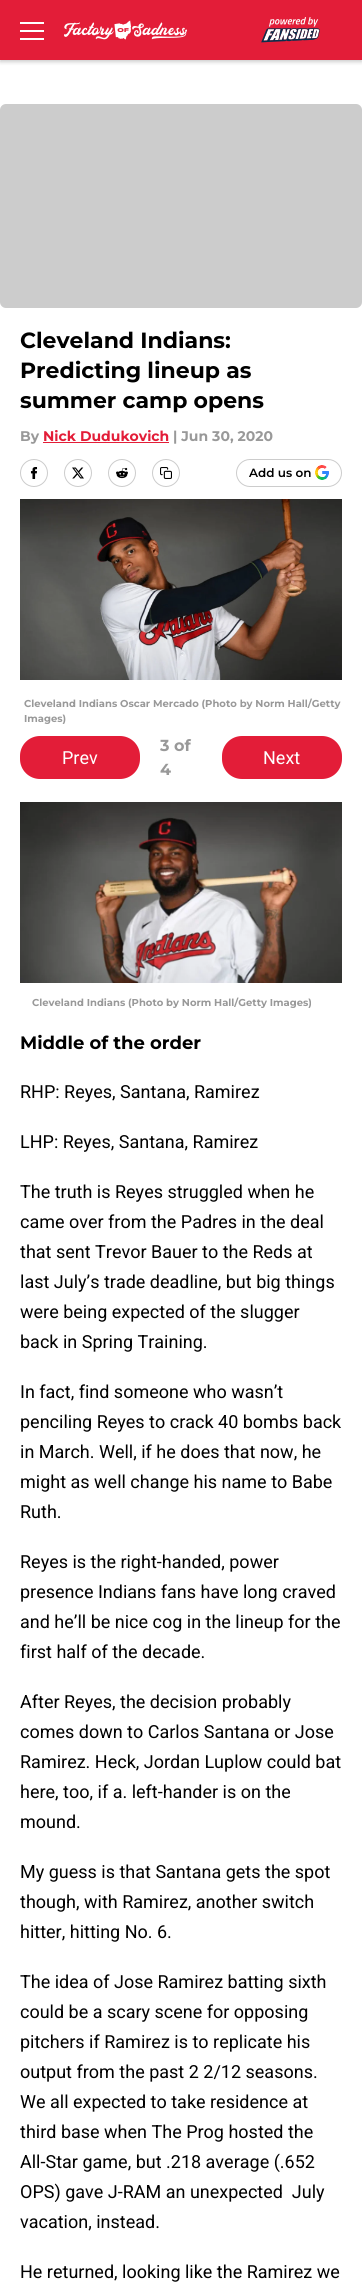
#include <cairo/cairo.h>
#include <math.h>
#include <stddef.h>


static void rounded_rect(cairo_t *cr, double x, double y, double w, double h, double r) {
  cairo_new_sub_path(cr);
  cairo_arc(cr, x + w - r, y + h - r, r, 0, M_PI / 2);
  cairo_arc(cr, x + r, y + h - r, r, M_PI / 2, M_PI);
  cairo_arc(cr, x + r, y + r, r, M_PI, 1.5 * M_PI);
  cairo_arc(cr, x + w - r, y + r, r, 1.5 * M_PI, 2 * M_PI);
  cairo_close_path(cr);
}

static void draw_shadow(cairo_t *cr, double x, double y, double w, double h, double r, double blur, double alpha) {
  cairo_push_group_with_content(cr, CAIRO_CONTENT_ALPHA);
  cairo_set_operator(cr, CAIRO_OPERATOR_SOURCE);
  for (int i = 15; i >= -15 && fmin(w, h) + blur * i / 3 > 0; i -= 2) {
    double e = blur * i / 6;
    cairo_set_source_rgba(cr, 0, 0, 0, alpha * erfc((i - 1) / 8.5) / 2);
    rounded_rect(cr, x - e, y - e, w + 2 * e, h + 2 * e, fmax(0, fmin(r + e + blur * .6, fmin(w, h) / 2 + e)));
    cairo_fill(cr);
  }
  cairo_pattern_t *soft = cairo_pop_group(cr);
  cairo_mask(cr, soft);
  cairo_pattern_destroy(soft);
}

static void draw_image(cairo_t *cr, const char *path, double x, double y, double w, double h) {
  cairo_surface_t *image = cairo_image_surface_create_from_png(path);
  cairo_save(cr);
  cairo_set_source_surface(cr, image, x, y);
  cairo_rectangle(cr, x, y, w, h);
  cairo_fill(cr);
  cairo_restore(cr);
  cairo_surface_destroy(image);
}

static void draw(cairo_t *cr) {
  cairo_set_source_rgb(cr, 1, 1, 1);
  cairo_paint(cr);
  cairo_set_source_rgb(cr, 0, 0, 0);
  draw_shadow(cr, 0, 2, 362, 60, 0, 2, 0.2);
  cairo_set_source_rgb(cr, 227 / 255.0, 29 / 255.0, 56 / 255.0);
  cairo_rectangle(cr, 0, 0, 362, 60);
  cairo_fill(cr);
  cairo_set_source_rgb(cr, 1, 1, 1);
  cairo_rectangle(cr, 20, 22, 24, 2);
  cairo_fill(cr);
  cairo_rectangle(cr, 20, 30, 24, 2);
  cairo_fill(cr);
  cairo_rectangle(cr, 20, 38, 24, 2);
  cairo_fill(cr);
  draw_image(cr, "images/1.png", 64, 20, 123, 20);
  draw_image(cr, "images/2.png", 261, 17, 59, 26);
  cairo_set_source_rgb(cr, 204 / 255.0, 204 / 255.0, 204 / 255.0);
  rounded_rect(cr, 0, 104, 362, 204, 6);
  cairo_fill(cr);
  cairo_set_source_rgb(cr, 227 / 255.0, 29 / 255.0, 56 / 255.0);
  cairo_rectangle(cr, 43, 442, 126, 1);
  cairo_fill(cr);
  cairo_arc(cr, 34, 473, 13.5, 0, 2 * M_PI);
  cairo_set_source_rgb(cr, 204 / 255.0, 204 / 255.0, 204 / 255.0);
  cairo_set_line_width(cr, 1);
  cairo_stroke(cr);
  draw_image(cr, "images/3.png", 30, 467, 8, 12);
  cairo_arc(cr, 78, 473, 13.5, 0, 2 * M_PI);
  cairo_stroke(cr);
  draw_image(cr, "images/4.png", 72, 467, 12, 12);
  cairo_arc(cr, 122, 473, 13.5, 0, 2 * M_PI);
  cairo_stroke(cr);
  draw_image(cr, "images/5.png", 116, 467, 12, 12);
  cairo_arc(cr, 166, 473, 13.5, 0, 2 * M_PI);
  cairo_stroke(cr);
  draw_image(cr, "images/6.png", 160, 467, 12, 12);
  rounded_rect(cr, 236.5, 459.5, 105, 27, 13.5);
  cairo_stroke(cr);
  draw_image(cr, "images/7.png", 315, 465, 14, 15);
  draw_image(cr, "images/8.png", 20, 499, 322, 181);
  cairo_set_source_rgb(cr, 227 / 255.0, 29 / 255.0, 56 / 255.0);
  rounded_rect(cr, 20, 736, 120, 43, 20);
  cairo_fill(cr);
  rounded_rect(cr, 222, 736, 120, 43, 20);
  cairo_fill(cr);
  draw_image(cr, "images/9.png", 20, 802, 322, 181);
  cairo_select_font_face(cr, "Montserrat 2 Thin", CAIRO_FONT_SLANT_NORMAL, CAIRO_FONT_WEIGHT_NORMAL);
  cairo_set_font_size(cr, 22);
  cairo_set_source_rgb(cr, 0, 0, 0);
  cairo_move_to(cr, 20, 348);
  cairo_show_text(cr, "Cleveland Indians:");
  cairo_move_to(cr, 20, 378);
  cairo_show_text(cr, "Predicting lineup as");
  cairo_move_to(cr, 20, 408);
  cairo_show_text(cr, "summer camp opens");
  cairo_set_font_size(cr, 14);
  cairo_set_source_rgb(cr, 153 / 255.0, 153 / 255.0, 153 / 255.0);
  cairo_move_to(cr, 20, 441);
  cairo_show_text(cr, "By");
  cairo_set_source_rgb(cr, 227 / 255.0, 29 / 255.0, 56 / 255.0);
  cairo_move_to(cr, 43, 441);
  cairo_show_text(cr, "Nick Dudukovich");
  cairo_set_source_rgb(cr, 153 / 255.0, 153 / 255.0, 153 / 255.0);
  cairo_move_to(cr, 173, 441);
  cairo_show_text(cr, "| Jun 30, 2020");
  cairo_select_font_face(cr, "Montserrat Thin", CAIRO_FONT_SLANT_NORMAL, CAIRO_FONT_WEIGHT_NORMAL);
  cairo_set_font_size(cr, 12);
  cairo_set_source_rgb(cr, 0, 0, 0);
  cairo_move_to(cr, 249, 477);
  cairo_show_text(cr, "Add us on");
  cairo_select_font_face(cr, "Montserrat 2 Thin", CAIRO_FONT_SLANT_NORMAL, CAIRO_FONT_WEIGHT_NORMAL);
  cairo_set_font_size(cr, 10);
  cairo_set_source_rgb(cr, 153 / 255.0, 153 / 255.0, 153 / 255.0);
  cairo_move_to(cr, 24, 707);
  cairo_show_text(cr, "Cleveland Indians Oscar Mercado (Photo by Norm Hall/Getty");
  cairo_move_to(cr, 24, 722);
  cairo_show_text(cr, "Images)");
  cairo_select_font_face(cr, "Roboto", CAIRO_FONT_SLANT_NORMAL, CAIRO_FONT_WEIGHT_NORMAL);
  cairo_set_font_size(cr, 18);
  cairo_set_source_rgb(cr, 1, 1, 1);
  cairo_move_to(cr, 62, 764);
  cairo_show_text(cr, "Prev");
  cairo_select_font_face(cr, "Montserrat 2 Thin", CAIRO_FONT_SLANT_NORMAL, CAIRO_FONT_WEIGHT_NORMAL);
  cairo_set_font_size(cr, 16);
  cairo_set_source_rgb(cr, 153 / 255.0, 153 / 255.0, 153 / 255.0);
  cairo_move_to(cr, 160, 751);
  cairo_show_text(cr, "3 of");
  cairo_move_to(cr, 160, 775);
  cairo_show_text(cr, "4");
  cairo_select_font_face(cr, "Roboto", CAIRO_FONT_SLANT_NORMAL, CAIRO_FONT_WEIGHT_NORMAL);
  cairo_set_font_size(cr, 18);
  cairo_set_source_rgb(cr, 1, 1, 1);
  cairo_move_to(cr, 263, 764);
  cairo_show_text(cr, "Next");
  cairo_select_font_face(cr, "Montserrat 2 Thin", CAIRO_FONT_SLANT_NORMAL, CAIRO_FONT_WEIGHT_NORMAL);
  cairo_set_font_size(cr, 10);
  cairo_set_source_rgb(cr, 153 / 255.0, 153 / 255.0, 153 / 255.0);
  cairo_move_to(cr, 32, 1006);
  cairo_show_text(cr, "Cleveland Indians (Photo by Norm Hall/Getty Images)");
  cairo_set_font_size(cr, 18);
  cairo_set_source_rgb(cr, 0, 0, 0);
  cairo_move_to(cr, 20, 1049);
  cairo_show_text(cr, "Middle of the order");
  cairo_select_font_face(cr, "Roboto", CAIRO_FONT_SLANT_NORMAL, CAIRO_FONT_WEIGHT_NORMAL);
  cairo_move_to(cr, 20, 1098);
  cairo_show_text(cr, "RHP: Reyes, Santana, Ramirez");
  cairo_move_to(cr, 20, 1148);
  cairo_show_text(cr, "LHP: Reyes, Santana, Ramirez");
  cairo_move_to(cr, 20, 1198);
  cairo_show_text(cr, "The truth is Reyes struggled when he");
  cairo_move_to(cr, 20, 1228);
  cairo_show_text(cr, "came over from the Padres in the deal");
  cairo_move_to(cr, 20, 1258);
  cairo_show_text(cr, "that sent Trevor Bauer to the Reds at");
  cairo_move_to(cr, 20, 1288);
  cairo_show_text(cr, "last July’s trade deadline, but big things");
  cairo_move_to(cr, 20, 1318);
  cairo_show_text(cr, "were being expected of the slugger");
  cairo_move_to(cr, 20, 1348);
  cairo_show_text(cr, "back in Spring Training.");
  cairo_move_to(cr, 20, 1398);
  cairo_show_text(cr, "In fact, find someone who wasn’t");
  cairo_move_to(cr, 20, 1428);
  cairo_show_text(cr, "penciling Reyes to crack 40 bombs back");
  cairo_move_to(cr, 20, 1458);
  cairo_show_text(cr, "in March. Well, if he does that now, he");
  cairo_move_to(cr, 20, 1488);
  cairo_show_text(cr, "might as well change his name to Babe");
  cairo_move_to(cr, 20, 1518);
  cairo_show_text(cr, "Ruth.");
  cairo_move_to(cr, 20, 1568);
  cairo_show_text(cr, "Reyes is the right-handed, power");
  cairo_move_to(cr, 20, 1598);
  cairo_show_text(cr, "presence Indians fans have long craved");
  cairo_move_to(cr, 20, 1628);
  cairo_show_text(cr, "and he’ll be nice cog in the lineup for the");
  cairo_move_to(cr, 20, 1658);
  cairo_show_text(cr, "first half of the decade.");
  cairo_move_to(cr, 20, 1708);
  cairo_show_text(cr, "After Reyes, the decision probably");
  cairo_move_to(cr, 20, 1738);
  cairo_show_text(cr, "comes down to Carlos Santana or Jose");
  cairo_move_to(cr, 20, 1768);
  cairo_show_text(cr, "Ramirez. Heck, Jordan Luplow could bat");
  cairo_move_to(cr, 20, 1798);
  cairo_show_text(cr, "here, too, if a. left-hander is on the");
  cairo_move_to(cr, 20, 1828);
  cairo_show_text(cr, "mound.");
  cairo_move_to(cr, 20, 1878);
  cairo_show_text(cr, "My guess is that Santana gets the spot");
  cairo_move_to(cr, 20, 1908);
  cairo_show_text(cr, "though, with Ramirez, another switch");
  cairo_move_to(cr, 20, 1938);
  cairo_show_text(cr, "hitter, hitting No. 6.");
  cairo_move_to(cr, 20, 1988);
  cairo_show_text(cr, "The idea of Jose Ramirez batting sixth");
  cairo_move_to(cr, 20, 2018);
  cairo_show_text(cr, "could be a scary scene for opposing");
  cairo_move_to(cr, 20, 2048);
  cairo_show_text(cr, "pitchers if Ramirez is to replicate his");
  cairo_move_to(cr, 20, 2078);
  cairo_show_text(cr, "output from the past 2 2/12 seasons.");
  cairo_move_to(cr, 20, 2108);
  cairo_show_text(cr, "We all expected to take residence at");
  cairo_move_to(cr, 20, 2138);
  cairo_show_text(cr, "third base when The Prog hosted the");
  cairo_move_to(cr, 20, 2168);
  cairo_show_text(cr, "All-Star game, but .218 average (.652");
  cairo_move_to(cr, 20, 2198);
  cairo_show_text(cr, "OPS) gave J-RAM an unexpected  July");
  cairo_move_to(cr, 20, 2228);
  cairo_show_text(cr, "vacation, instead.");
  cairo_move_to(cr, 20, 2278);
  cairo_show_text(cr, "He returned, looking like the Ramirez we");
}

int main(void) {
  cairo_surface_t *surface = cairo_image_surface_create(CAIRO_FORMAT_RGB24, 362, 2295);
  cairo_t *cr = cairo_create(surface);
  cairo_font_options_t *options = cairo_font_options_create();
  cairo_font_options_set_hint_metrics(options, CAIRO_HINT_METRICS_OFF);
  cairo_font_options_set_hint_style(options, CAIRO_HINT_STYLE_NONE);
  cairo_set_font_options(cr, options);
  cairo_set_miter_limit(cr, 4);
  draw(cr);
  cairo_surface_write_to_png(surface, "out.png");
  cairo_font_options_destroy(options);
  cairo_destroy(cr);
  cairo_surface_destroy(surface);
  return 0;
}
